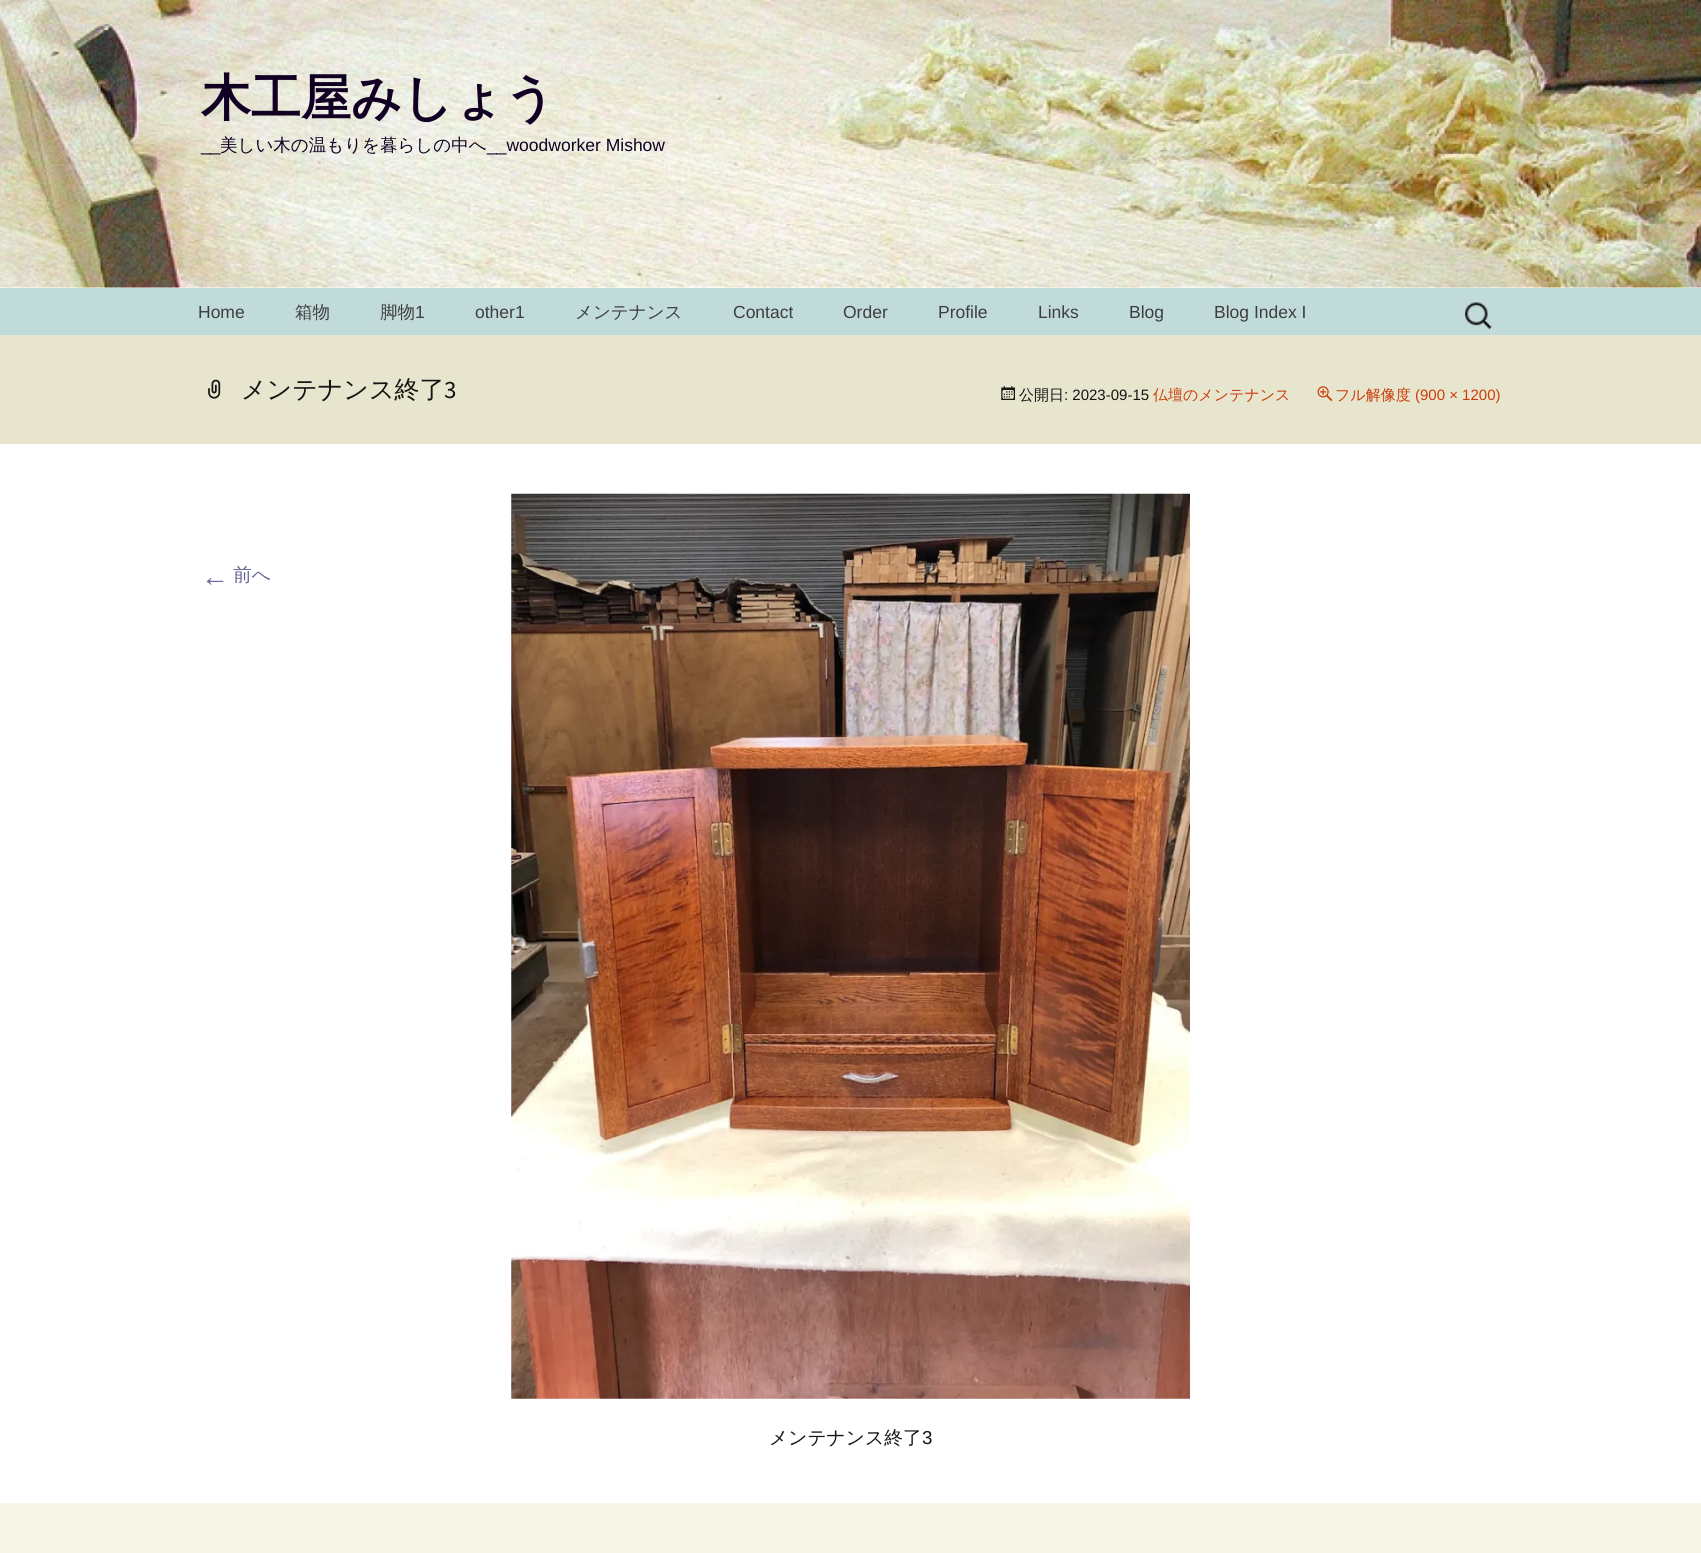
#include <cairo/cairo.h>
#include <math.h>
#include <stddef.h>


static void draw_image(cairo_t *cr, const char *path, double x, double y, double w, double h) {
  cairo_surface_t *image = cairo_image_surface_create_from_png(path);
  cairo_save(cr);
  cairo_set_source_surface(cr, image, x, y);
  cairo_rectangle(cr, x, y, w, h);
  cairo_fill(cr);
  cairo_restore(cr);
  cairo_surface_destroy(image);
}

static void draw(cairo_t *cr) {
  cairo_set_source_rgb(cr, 1, 1, 1);
  cairo_paint(cr);
  draw_image(cr, "images/1.png", 0, 0, 1701, 288);
  cairo_set_source_rgb(cr, 193 / 255.0, 218 / 255.0, 218 / 255.0);
  cairo_rectangle(cr, 0, 288, 1701, 47);
  cairo_fill(cr);
  draw_image(cr, "images/2.png", 1465, 302, 27, 27);
  cairo_set_source_rgb(cr, 232 / 255.0, 229 / 255.0, 206 / 255.0);
  cairo_rectangle(cr, 0, 335, 1701, 109);
  cairo_fill(cr);
  draw_image(cr, "images/3.png", 208, 379, 13, 20);
  draw_image(cr, "images/4.png", 1001, 386, 14, 14);
  draw_image(cr, "images/5.png", 1317, 386, 16, 16);
  draw_image(cr, "images/6.png", 511, 493, 679, 906);
  cairo_set_source_rgb(cr, 247 / 255.0, 245 / 255.0, 231 / 255.0);
  cairo_rectangle(cr, 0, 1503, 1701, 50);
  cairo_fill(cr);
  cairo_select_font_face(cr, "WenQuanYi Zen Hei", CAIRO_FONT_SLANT_NORMAL, CAIRO_FONT_WEIGHT_BOLD);
  cairo_set_font_size(cr, 50);
  cairo_set_source_rgb(cr, 17 / 255.0, 0, 35 / 255.0);
  cairo_move_to(cr, 201, 115);
  cairo_show_text(cr, "木工屋みしょう");
  cairo_select_font_face(cr, "Liberation Sans", CAIRO_FONT_SLANT_NORMAL, CAIRO_FONT_WEIGHT_NORMAL);
  cairo_set_font_size(cr, 17.5);
  cairo_move_to(cr, 201, 151);
  cairo_show_text(cr, "__");
  cairo_select_font_face(cr, "WenQuanYi Zen Hei Medium", CAIRO_FONT_SLANT_NORMAL, CAIRO_FONT_WEIGHT_NORMAL);
  cairo_move_to(cr, 220, 151);
  cairo_show_text(cr, "美しい木の温もりを暮らしの中へ");
  cairo_select_font_face(cr, "Liberation Sans", CAIRO_FONT_SLANT_NORMAL, CAIRO_FONT_WEIGHT_NORMAL);
  cairo_move_to(cr, 487, 151);
  cairo_show_text(cr, "__woodworker Mishow");
  cairo_set_source_rgb(cr, 62 / 255.0, 62 / 255.0, 62 / 255.0);
  cairo_move_to(cr, 198, 318);
  cairo_show_text(cr, "Home");
  cairo_select_font_face(cr, "WenQuanYi Zen Hei Medium", CAIRO_FONT_SLANT_NORMAL, CAIRO_FONT_WEIGHT_NORMAL);
  cairo_move_to(cr, 295, 318);
  cairo_show_text(cr, "箱物");
  cairo_move_to(cr, 380, 318);
  cairo_show_text(cr, "脚物");
  cairo_select_font_face(cr, "Liberation Sans", CAIRO_FONT_SLANT_NORMAL, CAIRO_FONT_WEIGHT_NORMAL);
  cairo_move_to(cr, 415, 318);
  cairo_show_text(cr, "1");
  cairo_move_to(cr, 475, 318);
  cairo_show_text(cr, "other1");
  cairo_select_font_face(cr, "WenQuanYi Zen Hei Medium", CAIRO_FONT_SLANT_NORMAL, CAIRO_FONT_WEIGHT_NORMAL);
  cairo_move_to(cr, 575, 318);
  cairo_show_text(cr, "メンテナンス");
  cairo_select_font_face(cr, "Liberation Sans", CAIRO_FONT_SLANT_NORMAL, CAIRO_FONT_WEIGHT_NORMAL);
  cairo_move_to(cr, 733, 318);
  cairo_show_text(cr, "Contact");
  cairo_move_to(cr, 843, 318);
  cairo_show_text(cr, "Order");
  cairo_move_to(cr, 938, 318);
  cairo_show_text(cr, "Profile");
  cairo_move_to(cr, 1038, 318);
  cairo_show_text(cr, "Links");
  cairo_move_to(cr, 1129, 318);
  cairo_show_text(cr, "Blog");
  cairo_move_to(cr, 1214, 318);
  cairo_show_text(cr, "Blog Index I");
  cairo_select_font_face(cr, "WenQuanYi Zen Hei Medium", CAIRO_FONT_SLANT_NORMAL, CAIRO_FONT_WEIGHT_NORMAL);
  cairo_set_font_size(cr, 25);
  cairo_set_source_rgb(cr, 20 / 255.0, 20 / 255.0, 18 / 255.0);
  cairo_move_to(cr, 241, 398);
  cairo_show_text(cr, "メンテナンス終了");
  cairo_select_font_face(cr, "Source Sans Pro", CAIRO_FONT_SLANT_NORMAL, CAIRO_FONT_WEIGHT_NORMAL);
  cairo_move_to(cr, 444, 398);
  cairo_show_text(cr, "3");
  cairo_select_font_face(cr, "WenQuanYi Zen Hei Medium", CAIRO_FONT_SLANT_NORMAL, CAIRO_FONT_WEIGHT_NORMAL);
  cairo_set_font_size(cr, 15);
  cairo_move_to(cr, 1019, 400);
  cairo_show_text(cr, "公開日");
  cairo_select_font_face(cr, "Liberation Sans", CAIRO_FONT_SLANT_NORMAL, CAIRO_FONT_WEIGHT_NORMAL);
  cairo_move_to(cr, 1064, 400);
  cairo_show_text(cr, ": 2023-09-15");
  cairo_select_font_face(cr, "WenQuanYi Zen Hei Medium", CAIRO_FONT_SLANT_NORMAL, CAIRO_FONT_WEIGHT_NORMAL);
  cairo_set_source_rgb(cr, 202 / 255.0, 60 / 255.0, 8 / 255.0);
  cairo_move_to(cr, 1153, 400);
  cairo_show_text(cr, "仏壇のメンテナンス");
  cairo_move_to(cr, 1335, 400);
  cairo_show_text(cr, "フル解像度");
  cairo_select_font_face(cr, "Liberation Sans", CAIRO_FONT_SLANT_NORMAL, CAIRO_FONT_WEIGHT_NORMAL);
  cairo_move_to(cr, 1415, 400);
  cairo_show_text(cr, "(900 × 1200)");
  cairo_set_font_size(cr, 28);
  cairo_set_source_rgb(cr, 102 / 255.0, 102 / 255.0, 153 / 255.0);
  cairo_move_to(cr, 201, 586);
  cairo_show_text(cr, "←");
  cairo_select_font_face(cr, "WenQuanYi Zen Hei Medium", CAIRO_FONT_SLANT_NORMAL, CAIRO_FONT_WEIGHT_NORMAL);
  cairo_set_font_size(cr, 18.75);
  cairo_move_to(cr, 233, 581);
  cairo_show_text(cr, "前へ");
  cairo_set_source_rgb(cr, 20 / 255.0, 20 / 255.0, 18 / 255.0);
  cairo_move_to(cr, 769, 1444);
  cairo_show_text(cr, "メンテナンス終了");
  cairo_select_font_face(cr, "Liberation Sans", CAIRO_FONT_SLANT_NORMAL, CAIRO_FONT_WEIGHT_NORMAL);
  cairo_move_to(cr, 922, 1444);
  cairo_show_text(cr, "3");
}

int main(void) {
  cairo_surface_t *surface = cairo_image_surface_create(CAIRO_FORMAT_RGB24, 1701, 1553);
  cairo_t *cr = cairo_create(surface);
  cairo_font_options_t *options = cairo_font_options_create();
  cairo_font_options_set_hint_metrics(options, CAIRO_HINT_METRICS_OFF);
  cairo_font_options_set_hint_style(options, CAIRO_HINT_STYLE_NONE);
  cairo_set_font_options(cr, options);
  cairo_set_miter_limit(cr, 4);
  draw(cr);
  cairo_surface_write_to_png(surface, "out.png");
  cairo_font_options_destroy(options);
  cairo_destroy(cr);
  cairo_surface_destroy(surface);
  return 0;
}
